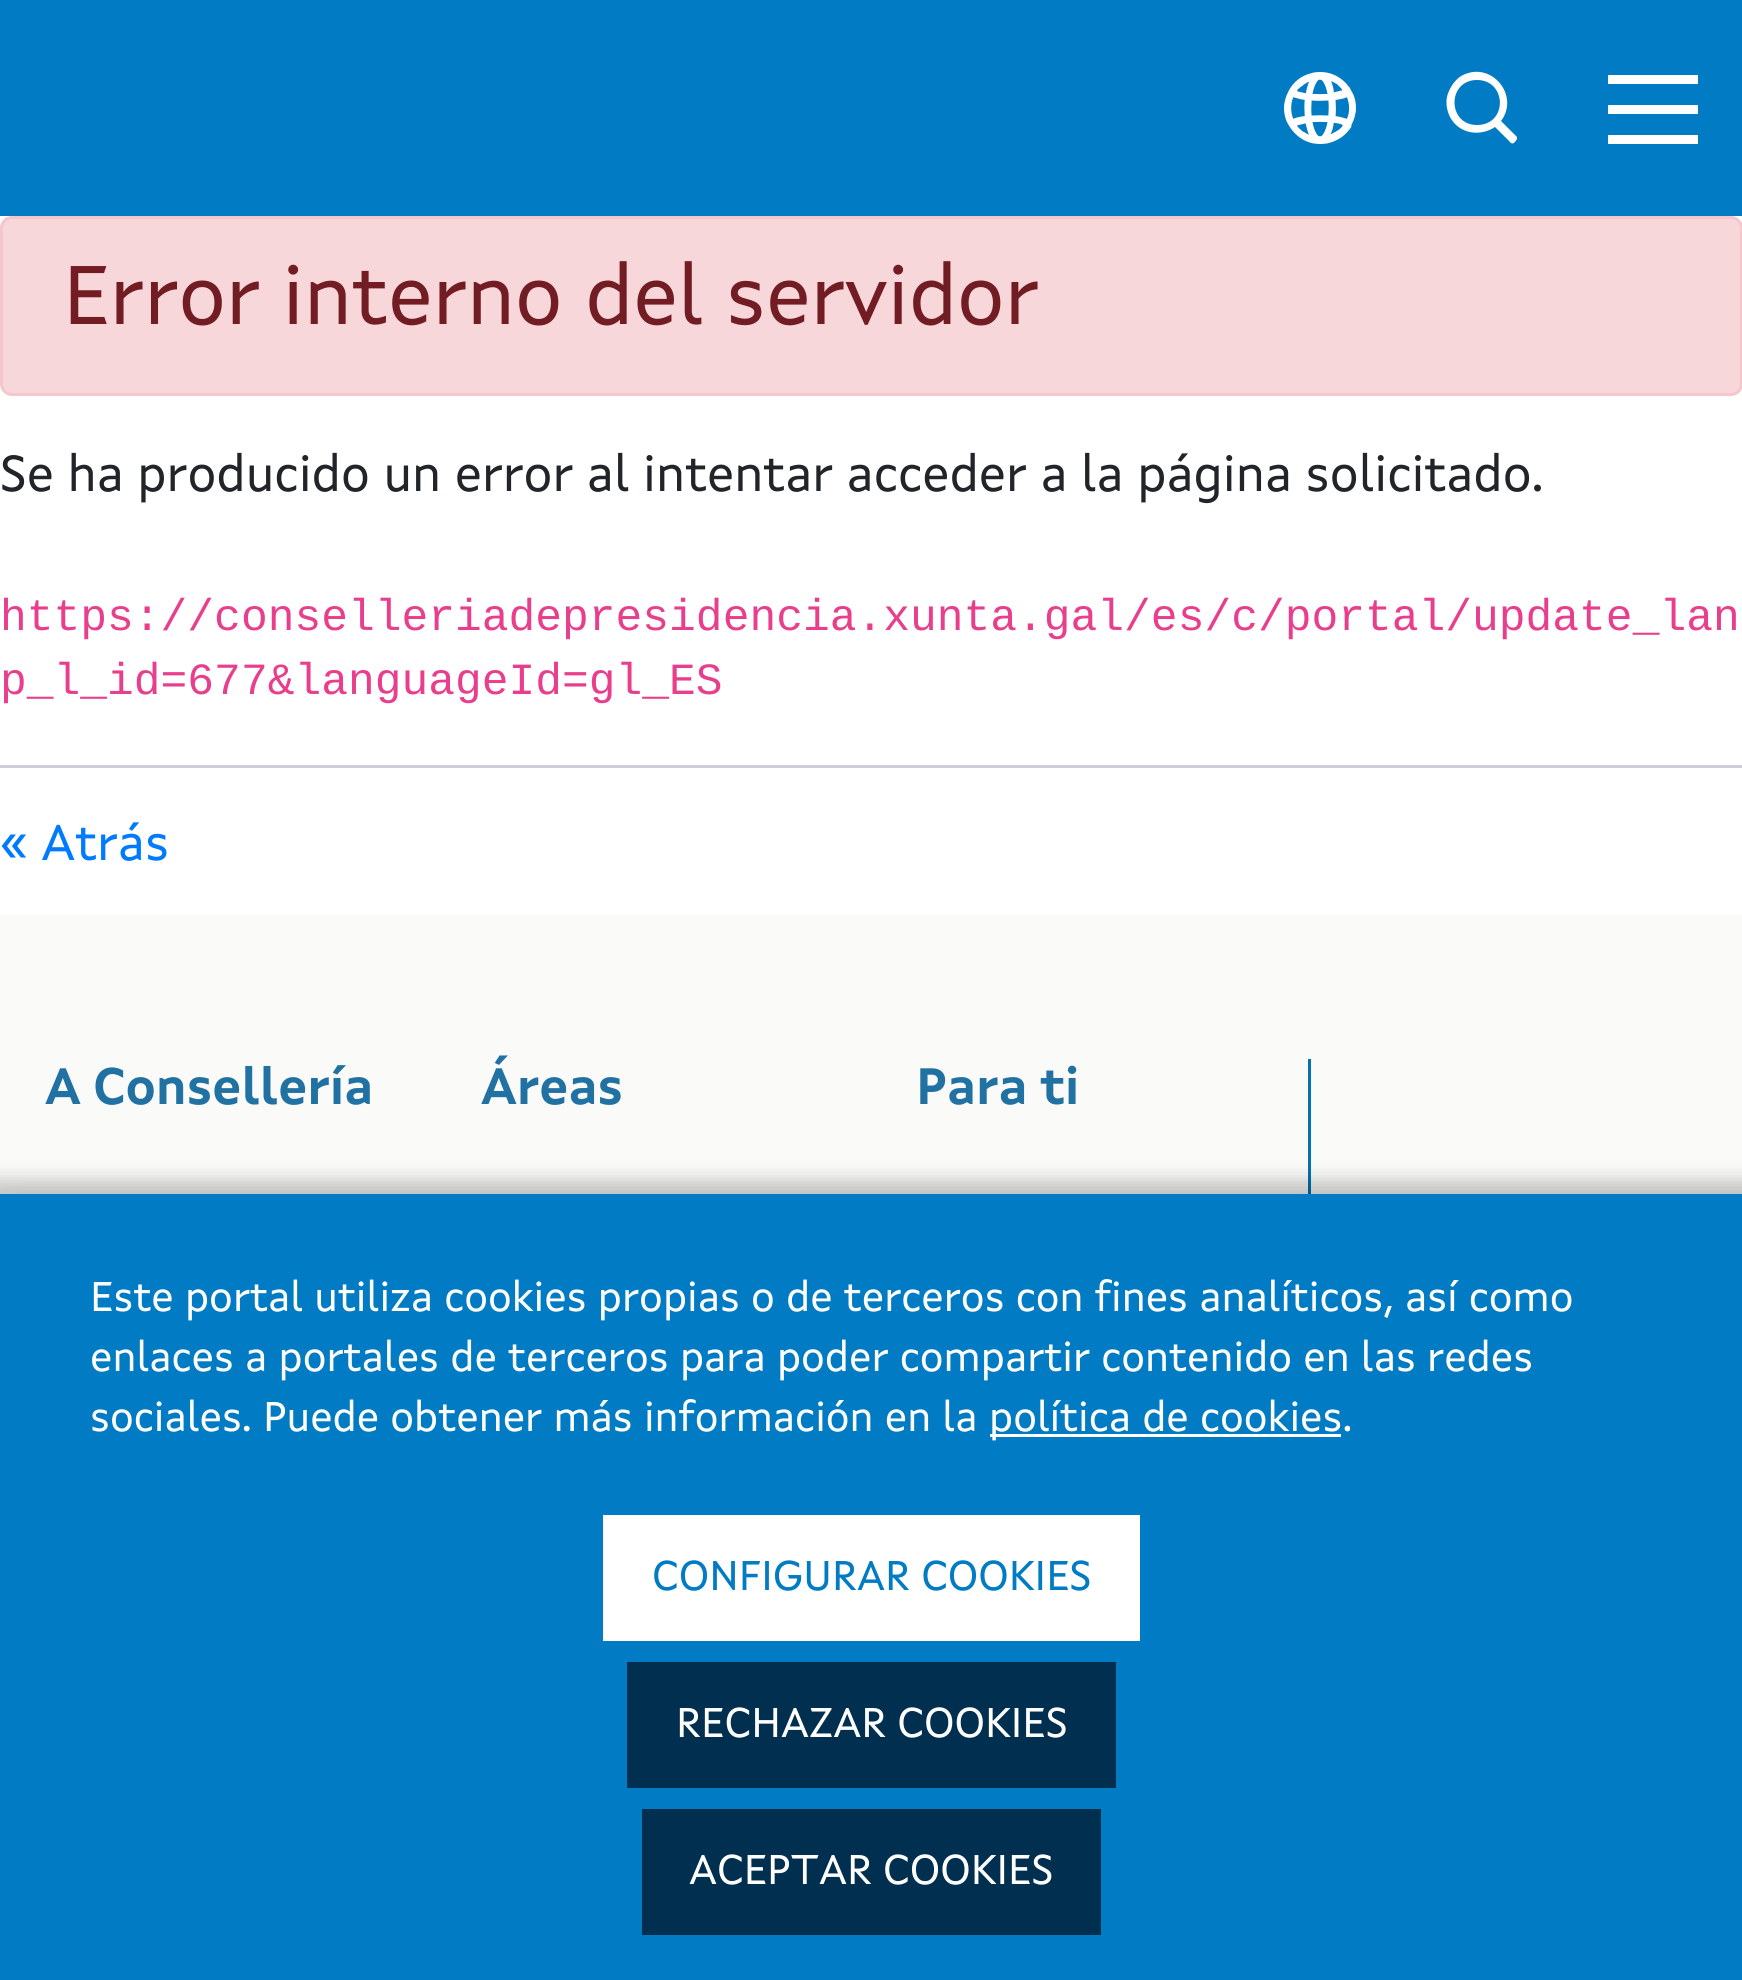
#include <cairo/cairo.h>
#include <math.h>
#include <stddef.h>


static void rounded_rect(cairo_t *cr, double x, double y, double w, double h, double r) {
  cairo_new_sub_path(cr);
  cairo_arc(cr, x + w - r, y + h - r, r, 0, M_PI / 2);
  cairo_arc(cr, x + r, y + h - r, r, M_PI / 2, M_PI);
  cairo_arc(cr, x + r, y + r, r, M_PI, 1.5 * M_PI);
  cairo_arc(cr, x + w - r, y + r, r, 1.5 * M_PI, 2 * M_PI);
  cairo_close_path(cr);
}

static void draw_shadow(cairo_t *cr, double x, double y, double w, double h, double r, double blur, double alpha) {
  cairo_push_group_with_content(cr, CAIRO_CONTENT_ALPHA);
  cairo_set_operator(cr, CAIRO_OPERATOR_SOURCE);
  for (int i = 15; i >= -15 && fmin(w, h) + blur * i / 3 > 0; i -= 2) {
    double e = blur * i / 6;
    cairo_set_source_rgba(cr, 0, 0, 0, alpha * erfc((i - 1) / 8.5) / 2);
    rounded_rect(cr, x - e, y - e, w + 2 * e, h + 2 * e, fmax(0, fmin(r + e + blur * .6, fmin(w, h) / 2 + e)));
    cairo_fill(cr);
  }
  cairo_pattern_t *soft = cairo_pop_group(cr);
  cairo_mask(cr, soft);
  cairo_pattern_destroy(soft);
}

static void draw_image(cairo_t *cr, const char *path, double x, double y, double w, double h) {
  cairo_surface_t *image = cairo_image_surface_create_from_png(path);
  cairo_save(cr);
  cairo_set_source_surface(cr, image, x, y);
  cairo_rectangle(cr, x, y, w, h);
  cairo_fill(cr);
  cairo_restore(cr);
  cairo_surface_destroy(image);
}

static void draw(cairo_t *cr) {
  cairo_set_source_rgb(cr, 1, 1, 1);
  cairo_paint(cr);
  cairo_set_source_rgb(cr, 0, 123 / 255.0, 196 / 255.0);
  cairo_rectangle(cr, 0, 0, 1742, 216);
  cairo_fill(cr);
  draw_image(cr, "images/1.png", 1284, 72, 72, 72);
  cairo_set_source_rgb(cr, 1, 1, 1);
  cairo_new_path(cr);
  cairo_move_to(cr, 1517, 137);
  cairo_line_to(cr, 1501, 121);
  cairo_curve_to(cr, 1520, 96, 1492, 61, 1463, 75);
  cairo_curve_to(cr, 1457, 78, 1452, 84, 1449, 91);
  cairo_curve_to(cr, 1445, 99, 1446, 109, 1450, 117);
  cairo_curve_to(cr, 1459, 134, 1480, 137, 1495, 127);
  cairo_line_to(cr, 1506, 138);
  cairo_curve_to(cr, 1510, 141, 1511, 146, 1515, 142);
  cairo_line_to(cr, 1517, 139);
  cairo_close_path(cr);
  cairo_move_to(cr, 1477, 125);
  cairo_curve_to(cr, 1447, 125, 1447, 80, 1477, 80);
  cairo_curve_to(cr, 1507, 80, 1508, 125, 1477, 125);
  cairo_close_path(cr);
  cairo_fill(cr);
  cairo_rectangle(cr, 1608, 75, 90, 9);
  cairo_fill(cr);
  cairo_rectangle(cr, 1608, 105, 90, 9);
  cairo_fill(cr);
  cairo_rectangle(cr, 1608, 135, 90, 9);
  cairo_fill(cr);
  cairo_set_source_rgb(cr, 248 / 255.0, 215 / 255.0, 218 / 255.0);
  rounded_rect(cr, 1.5, 217.5, 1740, 177, 10.5);
  cairo_fill_preserve(cr);
  cairo_set_source_rgb(cr, 245 / 255.0, 198 / 255.0, 203 / 255.0);
  cairo_set_line_width(cr, 3);
  cairo_stroke(cr);
  cairo_set_source_rgb(cr, 205 / 255.0, 206 / 255.0, 217 / 255.0);
  cairo_rectangle(cr, 0, 765, 1742, 3);
  cairo_fill(cr);
  cairo_set_source_rgb(cr, 250 / 255.0, 250 / 255.0, 249 / 255.0);
  cairo_rectangle(cr, 0, 915, 1742, 279);
  cairo_fill(cr);
  cairo_set_source_rgb(cr, 3 / 255.0, 113 / 255.0, 179 / 255.0);
  cairo_rectangle(cr, 1308, 1059, 3, 135);
  cairo_fill(cr);
  cairo_set_source_rgb(cr, 0, 0, 0);
  draw_shadow(cr, 15, 1209, 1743, 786, 0, 15, 0.19);
  draw_shadow(cr, -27, 1179, 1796, 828, 0, 9, 0.2);
  cairo_set_source_rgb(cr, 0, 123 / 255.0, 196 / 255.0);
  cairo_rectangle(cr, 0, 1194, 1742, 786);
  cairo_fill(cr);
  cairo_set_source_rgb(cr, 1, 1, 1);
  cairo_rectangle(cr, 990, 1434, 351, 3);
  cairo_fill(cr);
  cairo_rectangle(cr, 603, 1515, 537, 126);
  cairo_fill(cr);
  cairo_set_source_rgb(cr, 0, 47 / 255.0, 80 / 255.0);
  cairo_rectangle(cr, 627, 1662, 489, 126);
  cairo_fill(cr);
  cairo_rectangle(cr, 642, 1809, 459, 126);
  cairo_fill(cr);
  cairo_select_font_face(cr, "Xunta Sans", CAIRO_FONT_SLANT_NORMAL, CAIRO_FONT_WEIGHT_NORMAL);
  cairo_set_font_size(cr, 84);
  cairo_set_source_rgb(cr, 114 / 255.0, 28 / 255.0, 36 / 255.0);
  cairo_move_to(cr, 63, 324);
  cairo_show_text(cr, "Error interno del servidor");
  cairo_set_font_size(cr, 51);
  cairo_set_source_rgb(cr, 33 / 255.0, 37 / 255.0, 41 / 255.0);
  cairo_move_to(cr, 0, 491);
  cairo_show_text(cr, "Se ha producido un error al intentar acceder a la página solicitado.");
  cairo_select_font_face(cr, "Liberation Mono", CAIRO_FONT_SLANT_NORMAL, CAIRO_FONT_WEIGHT_NORMAL);
  cairo_set_font_size(cr, 44.6);
  cairo_set_source_rgb(cr, 232 / 255.0, 62 / 255.0, 140 / 255.0);
  cairo_move_to(cr, 0, 630);
  cairo_show_text(cr, "https://conselleriadepresidencia.xunta.gal/es/c/portal/update_lan");
  cairo_move_to(cr, 0, 694);
  cairo_show_text(cr, "p_l_id=677&languageId=gl_ES");
  cairo_select_font_face(cr, "Xunta Sans", CAIRO_FONT_SLANT_NORMAL, CAIRO_FONT_WEIGHT_NORMAL);
  cairo_set_font_size(cr, 51);
  cairo_set_source_rgb(cr, 0, 123 / 255.0, 1);
  cairo_move_to(cr, 0, 860);
  cairo_show_text(cr, "« Atrás");
  cairo_select_font_face(cr, "Xunta Sans", CAIRO_FONT_SLANT_NORMAL, CAIRO_FONT_WEIGHT_BOLD);
  cairo_set_source_rgb(cr, 33 / 255.0, 114 / 255.0, 163 / 255.0);
  cairo_move_to(cr, 45, 1104);
  cairo_show_text(cr, "A Consellería");
  cairo_move_to(cr, 481, 1104);
  cairo_show_text(cr, "Áreas");
  cairo_move_to(cr, 916, 1104);
  cairo_show_text(cr, "Para ti");
  cairo_select_font_face(cr, "Xunta Sans", CAIRO_FONT_SLANT_NORMAL, CAIRO_FONT_WEIGHT_NORMAL);
  cairo_set_font_size(cr, 42);
  cairo_set_source_rgb(cr, 1, 1, 1);
  cairo_move_to(cr, 90, 1311);
  cairo_show_text(cr, "Este portal utiliza cookies propias o de terceros con fines analíticos, así como");
  cairo_move_to(cr, 90, 1371);
  cairo_show_text(cr, "enlaces a portales de terceros para poder compartir contenido en las redes");
  cairo_move_to(cr, 90, 1431);
  cairo_show_text(cr, "sociales. Puede obtener más información en la");
  cairo_move_to(cr, 989, 1431);
  cairo_show_text(cr, "política de cookies.");
  cairo_set_source_rgb(cr, 0, 123 / 255.0, 196 / 255.0);
  cairo_move_to(cr, 652, 1590);
  cairo_show_text(cr, "CONFIGURAR COOKIES");
  cairo_set_source_rgb(cr, 1, 1, 1);
  cairo_move_to(cr, 676, 1737);
  cairo_show_text(cr, "RECHAZAR COOKIES");
  cairo_move_to(cr, 689, 1884);
  cairo_show_text(cr, "ACEPTAR COOKIES");
}

int main(void) {
  cairo_surface_t *surface = cairo_image_surface_create(CAIRO_FORMAT_RGB24, 1742, 1980);
  cairo_t *cr = cairo_create(surface);
  cairo_font_options_t *options = cairo_font_options_create();
  cairo_font_options_set_hint_metrics(options, CAIRO_HINT_METRICS_OFF);
  cairo_font_options_set_hint_style(options, CAIRO_HINT_STYLE_NONE);
  cairo_set_font_options(cr, options);
  cairo_set_miter_limit(cr, 4);
  draw(cr);
  cairo_surface_write_to_png(surface, "out.png");
  cairo_font_options_destroy(options);
  cairo_destroy(cr);
  cairo_surface_destroy(surface);
  return 0;
}
